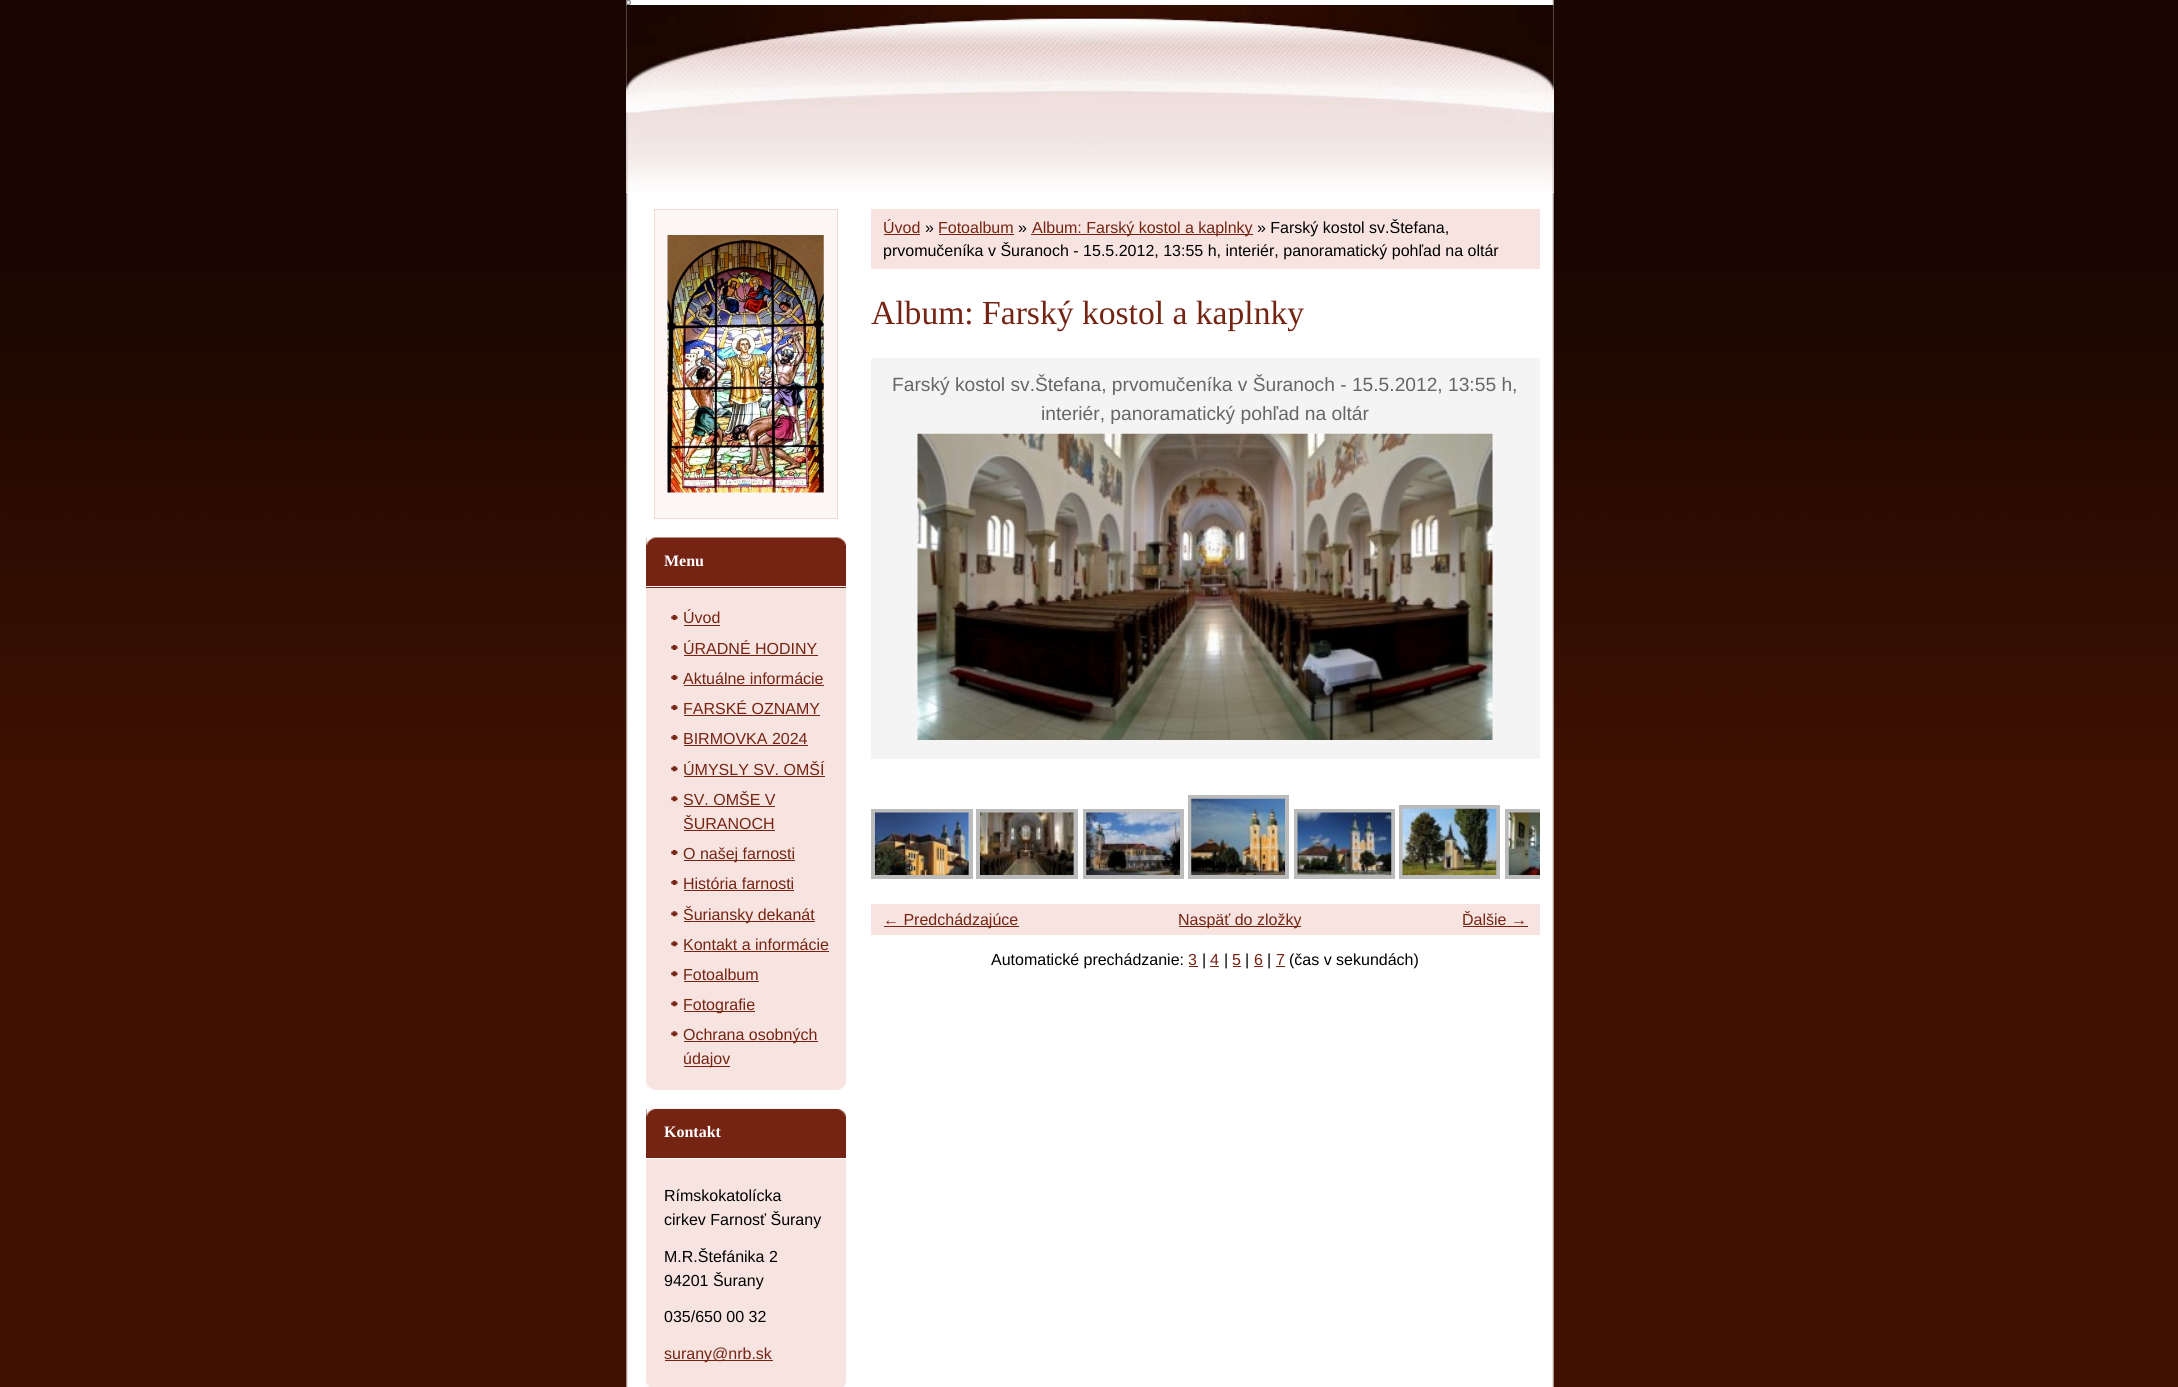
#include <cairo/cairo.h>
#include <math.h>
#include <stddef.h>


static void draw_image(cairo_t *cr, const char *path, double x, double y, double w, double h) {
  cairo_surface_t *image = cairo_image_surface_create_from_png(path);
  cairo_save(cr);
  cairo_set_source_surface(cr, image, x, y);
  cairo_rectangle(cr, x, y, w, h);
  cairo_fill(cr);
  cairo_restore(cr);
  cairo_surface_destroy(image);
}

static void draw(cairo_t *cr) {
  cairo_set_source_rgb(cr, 64 / 255.0, 17 / 255.0, 1 / 255.0);
  cairo_paint(cr);
  draw_image(cr, "images/1.png", 0, 0, 2178, 760);
  draw_image(cr, "images/2.png", 626, 0, 928, 1387);
  cairo_set_source_rgb(cr, 239 / 255.0, 239 / 255.0, 239 / 255.0);
  cairo_arc(cr, 628.5, 2.5, 2, 0, 2 * M_PI);
  cairo_fill_preserve(cr);
  cairo_set_source_rgb(cr, 118 / 255.0, 118 / 255.0, 118 / 255.0);
  cairo_set_line_width(cr, 1);
  cairo_stroke(cr);
  cairo_set_source_rgb(cr, 1, 1, 1);
  cairo_rectangle(cr, 626, 5, 928, 188);
  cairo_fill(cr);
  draw_image(cr, "images/3.png", 626, 5, 928, 188);
  cairo_set_source_rgb(cr, 252 / 255.0, 247 / 255.0, 246 / 255.0);
  cairo_rectangle(cr, 654.5, 209.5, 183, 309);
  cairo_fill_preserve(cr);
  cairo_set_source_rgb(cr, 244 / 255.0, 216 / 255.0, 211 / 255.0);
  cairo_stroke(cr);
  draw_image(cr, "images/4.png", 667, 235, 157, 258);
  cairo_set_source_rgb(cr, 117 / 255.0, 36 / 255.0, 19 / 255.0);
  cairo_rectangle(cr, 646, 538, 200, 50);
  cairo_fill(cr);
  draw_image(cr, "images/5.png", 646, 537, 201, 8);
  cairo_set_source_rgb(cr, 1, 1, 1);
  cairo_rectangle(cr, 646, 586, 200, 1);
  cairo_fill(cr);
  cairo_set_source_rgb(cr, 247 / 255.0, 228 / 255.0, 224 / 255.0);
  cairo_rectangle(cr, 646, 588, 200, 502);
  cairo_fill(cr);
  draw_image(cr, "images/6.png", 646, 1082, 201, 8);
  draw_image(cr, "images/7.png", 671, 615, 7, 5);
  cairo_set_source_rgb(cr, 117 / 255.0, 36 / 255.0, 19 / 255.0);
  cairo_rectangle(cr, 684, 625, 36, 1);
  cairo_fill(cr);
  draw_image(cr, "images/7.png", 671, 645, 7, 5);
  cairo_rectangle(cr, 684, 655, 134, 1);
  cairo_fill(cr);
  draw_image(cr, "images/7.png", 671, 675, 7, 5);
  cairo_rectangle(cr, 684, 685, 140, 1);
  cairo_fill(cr);
  draw_image(cr, "images/7.png", 671, 705, 7, 5);
  cairo_rectangle(cr, 684, 715, 136, 1);
  cairo_fill(cr);
  draw_image(cr, "images/7.png", 671, 735, 7, 5);
  cairo_rectangle(cr, 684, 745, 124, 1);
  cairo_fill(cr);
  draw_image(cr, "images/8.png", 671, 766, 7, 6);
  cairo_rectangle(cr, 684, 776, 141, 1);
  cairo_fill(cr);
  draw_image(cr, "images/8.png", 671, 796, 7, 6);
  cairo_rectangle(cr, 684, 806, 91, 1);
  cairo_fill(cr);
  cairo_rectangle(cr, 684, 830, 91, 1);
  cairo_fill(cr);
  draw_image(cr, "images/7.png", 671, 850, 7, 5);
  cairo_rectangle(cr, 684, 860, 111, 1);
  cairo_fill(cr);
  draw_image(cr, "images/7.png", 671, 880, 7, 5);
  cairo_rectangle(cr, 684, 890, 110, 1);
  cairo_fill(cr);
  draw_image(cr, "images/8.png", 671, 911, 7, 6);
  cairo_rectangle(cr, 684, 921, 131, 1);
  cairo_fill(cr);
  draw_image(cr, "images/8.png", 671, 941, 7, 6);
  cairo_rectangle(cr, 684, 951, 145, 1);
  cairo_fill(cr);
  draw_image(cr, "images/8.png", 671, 971, 7, 6);
  cairo_rectangle(cr, 684, 981, 75, 1);
  cairo_fill(cr);
  draw_image(cr, "images/8.png", 671, 1001, 7, 6);
  cairo_rectangle(cr, 684, 1011, 71, 1);
  cairo_fill(cr);
  draw_image(cr, "images/8.png", 671, 1031, 7, 6);
  cairo_rectangle(cr, 684, 1041, 134, 1);
  cairo_fill(cr);
  cairo_rectangle(cr, 684, 1066, 46, 1);
  cairo_fill(cr);
  cairo_set_source_rgb(cr, 247 / 255.0, 228 / 255.0, 224 / 255.0);
  cairo_rectangle(cr, 646, 1159, 200, 228);
  cairo_fill(cr);
  draw_image(cr, "images/9.png", 646, 1382, 200, 5);
  cairo_set_source_rgb(cr, 117 / 255.0, 36 / 255.0, 19 / 255.0);
  cairo_rectangle(cr, 646, 1109, 200, 49);
  cairo_fill(cr);
  draw_image(cr, "images/10.png", 646, 1108, 201, 9);
  cairo_rectangle(cr, 665, 1360, 108, 1);
  cairo_fill(cr);
  cairo_set_source_rgb(cr, 247 / 255.0, 228 / 255.0, 224 / 255.0);
  cairo_rectangle(cr, 871, 209, 669, 60);
  cairo_fill(cr);
  cairo_set_source_rgb(cr, 117 / 255.0, 36 / 255.0, 19 / 255.0);
  cairo_rectangle(cr, 884, 234, 36, 1);
  cairo_fill(cr);
  cairo_rectangle(cr, 939, 234, 75, 1);
  cairo_fill(cr);
  cairo_rectangle(cr, 1031, 234, 222, 1);
  cairo_fill(cr);
  cairo_set_source_rgb(cr, 245 / 255.0, 244 / 255.0, 244 / 255.0);
  cairo_rectangle(cr, 871, 358, 669, 401);
  cairo_fill(cr);
  draw_image(cr, "images/11.png", 917, 433, 576, 307);
  cairo_rectangle(cr, 1190, 797, 97, 80);
  cairo_set_source_rgb(cr, 187 / 255.0, 187 / 255.0, 187 / 255.0);
  cairo_set_line_width(cr, 4);
  cairo_stroke(cr);
  draw_image(cr, "images/12.png", 1191, 798, 94, 77);
  cairo_rectangle(cr, 1401, 807, 97, 70);
  cairo_stroke(cr);
  cairo_rectangle(cr, 873, 811, 98, 66);
  cairo_stroke(cr);
  cairo_rectangle(cr, 978, 811, 98, 66);
  cairo_stroke(cr);
  cairo_rectangle(cr, 1085, 811, 97, 66);
  cairo_stroke(cr);
  cairo_rectangle(cr, 1296, 811, 97, 66);
  cairo_stroke(cr);
  draw_image(cr, "images/13.png", 1402, 808, 95, 67);
  cairo_save(cr);
  cairo_rectangle(cr, 871, 778, 669, 107);
  cairo_clip(cr);
  cairo_rectangle(cr, 1507, 811, 97, 66);
  cairo_stroke(cr);
  cairo_restore(cr);
  draw_image(cr, "images/14.png", 875, 812, 94, 63);
  draw_image(cr, "images/15.png", 980, 812, 94, 63);
  draw_image(cr, "images/16.png", 1086, 812, 94, 63);
  draw_image(cr, "images/17.png", 1297, 812, 95, 63);
  draw_image(cr, "images/18.png", 1508, 812, 32, 63);
  cairo_set_source_rgb(cr, 247 / 255.0, 228 / 255.0, 224 / 255.0);
  cairo_rectangle(cr, 871, 904, 669, 31);
  cairo_fill(cr);
  cairo_set_source_rgb(cr, 117 / 255.0, 36 / 255.0, 19 / 255.0);
  cairo_rectangle(cr, 884, 926, 135, 1);
  cairo_fill(cr);
  cairo_rectangle(cr, 1179, 926, 122, 1);
  cairo_fill(cr);
  cairo_rectangle(cr, 1463, 926, 65, 1);
  cairo_fill(cr);
  cairo_rectangle(cr, 1189, 966, 9, 1);
  cairo_fill(cr);
  cairo_rectangle(cr, 1210, 966, 9, 1);
  cairo_fill(cr);
  cairo_rectangle(cr, 1233, 966, 8, 1);
  cairo_fill(cr);
  cairo_rectangle(cr, 1254, 966, 9, 1);
  cairo_fill(cr);
  cairo_rectangle(cr, 1276, 966, 9, 1);
  cairo_fill(cr);
  cairo_select_font_face(cr, "Liberation Serif", CAIRO_FONT_SLANT_NORMAL, CAIRO_FONT_WEIGHT_BOLD);
  cairo_set_font_size(cr, 16);
  cairo_set_source_rgb(cr, 1, 1, 1);
  cairo_move_to(cr, 664, 566);
  cairo_show_text(cr, "Menu");
  cairo_select_font_face(cr, "Liberation Sans", CAIRO_FONT_SLANT_NORMAL, CAIRO_FONT_WEIGHT_NORMAL);
  cairo_set_source_rgb(cr, 117 / 255.0, 36 / 255.0, 19 / 255.0);
  cairo_move_to(cr, 683, 623);
  cairo_show_text(cr, "Úvod");
  cairo_move_to(cr, 683, 654);
  cairo_show_text(cr, "ÚRADNÉ HODINY");
  cairo_move_to(cr, 683, 684);
  cairo_show_text(cr, "Aktuálne informácie");
  cairo_move_to(cr, 683, 714);
  cairo_show_text(cr, "FARSKÉ OZNAMY");
  cairo_move_to(cr, 683, 744);
  cairo_show_text(cr, "BIRMOVKA 2024");
  cairo_move_to(cr, 683, 775);
  cairo_show_text(cr, "ÚMYSLY SV. OMŠÍ");
  cairo_move_to(cr, 683, 805);
  cairo_show_text(cr, "SV. OMŠE V");
  cairo_move_to(cr, 683, 829);
  cairo_show_text(cr, "ŠURANOCH");
  cairo_move_to(cr, 683, 859);
  cairo_show_text(cr, "O našej farnosti");
  cairo_move_to(cr, 683, 889);
  cairo_show_text(cr, "História farnosti");
  cairo_move_to(cr, 683, 920);
  cairo_show_text(cr, "Šuriansky dekanát");
  cairo_move_to(cr, 683, 950);
  cairo_show_text(cr, "Kontakt a informácie");
  cairo_move_to(cr, 683, 980);
  cairo_show_text(cr, "Fotoalbum");
  cairo_move_to(cr, 683, 1010);
  cairo_show_text(cr, "Fotografie");
  cairo_move_to(cr, 683, 1040);
  cairo_show_text(cr, "Ochrana osobných");
  cairo_move_to(cr, 683, 1064);
  cairo_show_text(cr, "údajov");
  cairo_select_font_face(cr, "Liberation Serif", CAIRO_FONT_SLANT_NORMAL, CAIRO_FONT_WEIGHT_BOLD);
  cairo_set_source_rgb(cr, 1, 1, 1);
  cairo_move_to(cr, 664, 1137);
  cairo_show_text(cr, "Kontakt");
  cairo_select_font_face(cr, "Liberation Sans", CAIRO_FONT_SLANT_NORMAL, CAIRO_FONT_WEIGHT_NORMAL);
  cairo_set_source_rgb(cr, 0, 0, 0);
  cairo_move_to(cr, 664, 1201);
  cairo_show_text(cr, "Rímskokatolícka");
  cairo_move_to(cr, 664, 1225);
  cairo_show_text(cr, "cirkev Farnosť Šurany");
  cairo_move_to(cr, 664, 1262);
  cairo_show_text(cr, "M.R.Štefánika 2");
  cairo_move_to(cr, 664, 1286);
  cairo_show_text(cr, "94201 Šurany");
  cairo_move_to(cr, 664, 1322);
  cairo_show_text(cr, "035/650 00 32");
  cairo_set_source_rgb(cr, 117 / 255.0, 36 / 255.0, 19 / 255.0);
  cairo_move_to(cr, 664, 1359);
  cairo_show_text(cr, "surany@nrb.sk");
  cairo_move_to(cr, 883, 233);
  cairo_show_text(cr, "Úvod");
  cairo_set_source_rgb(cr, 0, 0, 0);
  cairo_move_to(cr, 925, 233);
  cairo_show_text(cr, "»");
  cairo_set_source_rgb(cr, 117 / 255.0, 36 / 255.0, 19 / 255.0);
  cairo_move_to(cr, 938, 233);
  cairo_show_text(cr, "Fotoalbum");
  cairo_set_source_rgb(cr, 0, 0, 0);
  cairo_move_to(cr, 1018, 233);
  cairo_show_text(cr, "»");
  cairo_set_source_rgb(cr, 117 / 255.0, 36 / 255.0, 19 / 255.0);
  cairo_move_to(cr, 1032, 233);
  cairo_show_text(cr, "Album: Farský kostol a kaplnky");
  cairo_set_source_rgb(cr, 0, 0, 0);
  cairo_move_to(cr, 1257, 233);
  cairo_show_text(cr, "» Farský kostol sv.Štefana,");
  cairo_move_to(cr, 883, 256);
  cairo_show_text(cr, "prvomučeníka v Šuranoch - 15.5.2012, 13:55 h, interiér, panoramatický pohľad na oltár");
  cairo_select_font_face(cr, "Liberation Serif", CAIRO_FONT_SLANT_NORMAL, CAIRO_FONT_WEIGHT_NORMAL);
  cairo_set_font_size(cr, 33.6);
  cairo_set_source_rgb(cr, 117 / 255.0, 36 / 255.0, 19 / 255.0);
  cairo_move_to(cr, 871, 324);
  cairo_show_text(cr, "Album: Farský kostol a kaplnky");
  cairo_select_font_face(cr, "Liberation Sans", CAIRO_FONT_SLANT_NORMAL, CAIRO_FONT_WEIGHT_NORMAL);
  cairo_set_font_size(cr, 19.2);
  cairo_set_source_rgb(cr, 102 / 255.0, 102 / 255.0, 102 / 255.0);
  cairo_move_to(cr, 892, 391);
  cairo_show_text(cr, "Farský kostol sv.Štefana, prvomučeníka v Šuranoch - 15.5.2012, 13:55 h,");
  cairo_move_to(cr, 1041, 420);
  cairo_show_text(cr, "interiér, panoramatický pohľad na oltár");
  cairo_set_font_size(cr, 16);
  cairo_set_source_rgb(cr, 117 / 255.0, 36 / 255.0, 19 / 255.0);
  cairo_move_to(cr, 883, 925);
  cairo_show_text(cr, "← Predchádzajúce");
  cairo_move_to(cr, 1178, 925);
  cairo_show_text(cr, "Naspäť do zložky");
  cairo_move_to(cr, 1462, 925);
  cairo_show_text(cr, "Ďalšie →");
  cairo_set_source_rgb(cr, 0, 0, 0);
  cairo_move_to(cr, 991, 965);
  cairo_show_text(cr, "Automatické prechádzanie:");
  cairo_set_source_rgb(cr, 117 / 255.0, 36 / 255.0, 19 / 255.0);
  cairo_move_to(cr, 1188, 965);
  cairo_show_text(cr, "3");
  cairo_set_source_rgb(cr, 0, 0, 0);
  cairo_move_to(cr, 1202, 965);
  cairo_show_text(cr, "|");
  cairo_set_source_rgb(cr, 117 / 255.0, 36 / 255.0, 19 / 255.0);
  cairo_move_to(cr, 1210, 965);
  cairo_show_text(cr, "4");
  cairo_set_source_rgb(cr, 0, 0, 0);
  cairo_move_to(cr, 1224, 965);
  cairo_show_text(cr, "|");
  cairo_set_source_rgb(cr, 117 / 255.0, 36 / 255.0, 19 / 255.0);
  cairo_move_to(cr, 1232, 965);
  cairo_show_text(cr, "5");
  cairo_set_source_rgb(cr, 0, 0, 0);
  cairo_move_to(cr, 1245, 965);
  cairo_show_text(cr, "|");
  cairo_set_source_rgb(cr, 117 / 255.0, 36 / 255.0, 19 / 255.0);
  cairo_move_to(cr, 1254, 965);
  cairo_show_text(cr, "6");
  cairo_set_source_rgb(cr, 0, 0, 0);
  cairo_move_to(cr, 1267, 965);
  cairo_show_text(cr, "|");
  cairo_set_source_rgb(cr, 117 / 255.0, 36 / 255.0, 19 / 255.0);
  cairo_move_to(cr, 1276, 965);
  cairo_show_text(cr, "7");
  cairo_set_source_rgb(cr, 0, 0, 0);
  cairo_move_to(cr, 1289, 965);
  cairo_show_text(cr, "(čas v sekundách)");
}

int main(void) {
  cairo_surface_t *surface = cairo_image_surface_create(CAIRO_FORMAT_RGB24, 2178, 1387);
  cairo_t *cr = cairo_create(surface);
  cairo_font_options_t *options = cairo_font_options_create();
  cairo_font_options_set_hint_metrics(options, CAIRO_HINT_METRICS_OFF);
  cairo_font_options_set_hint_style(options, CAIRO_HINT_STYLE_NONE);
  cairo_set_font_options(cr, options);
  cairo_set_miter_limit(cr, 4);
  draw(cr);
  cairo_surface_write_to_png(surface, "out.png");
  cairo_font_options_destroy(options);
  cairo_destroy(cr);
  cairo_surface_destroy(surface);
  return 0;
}
